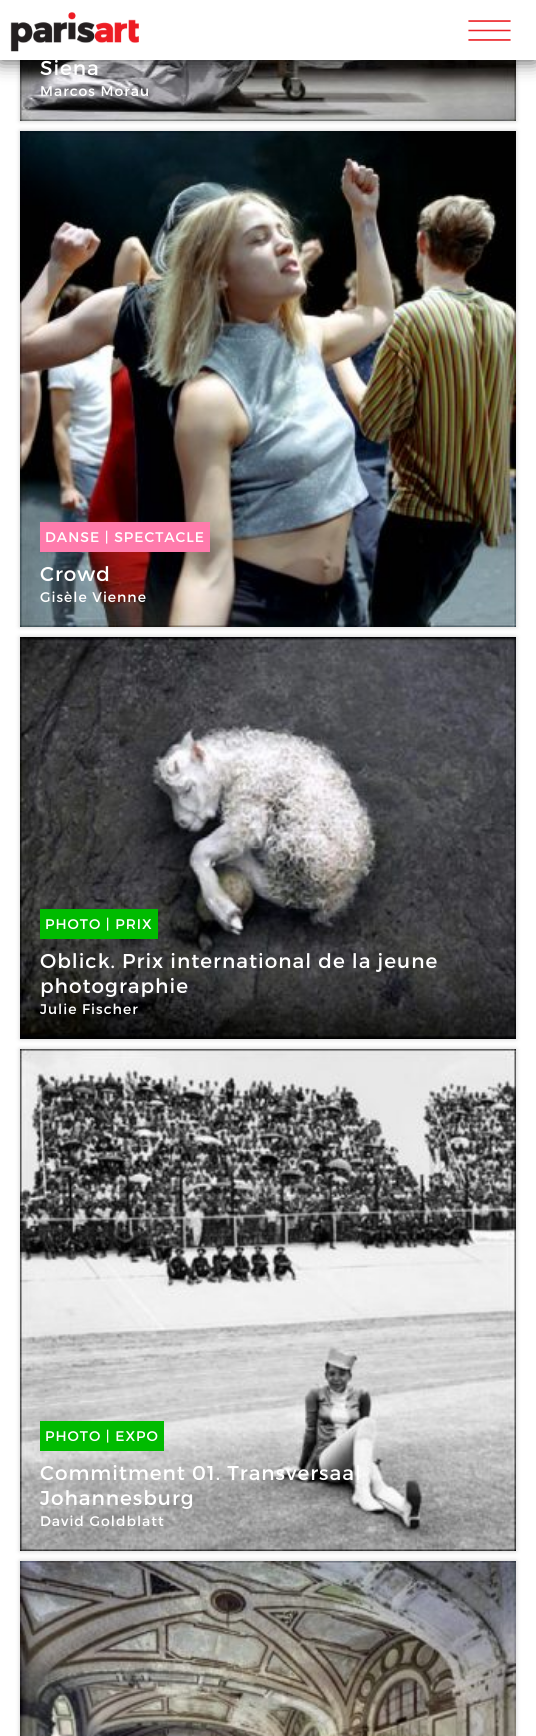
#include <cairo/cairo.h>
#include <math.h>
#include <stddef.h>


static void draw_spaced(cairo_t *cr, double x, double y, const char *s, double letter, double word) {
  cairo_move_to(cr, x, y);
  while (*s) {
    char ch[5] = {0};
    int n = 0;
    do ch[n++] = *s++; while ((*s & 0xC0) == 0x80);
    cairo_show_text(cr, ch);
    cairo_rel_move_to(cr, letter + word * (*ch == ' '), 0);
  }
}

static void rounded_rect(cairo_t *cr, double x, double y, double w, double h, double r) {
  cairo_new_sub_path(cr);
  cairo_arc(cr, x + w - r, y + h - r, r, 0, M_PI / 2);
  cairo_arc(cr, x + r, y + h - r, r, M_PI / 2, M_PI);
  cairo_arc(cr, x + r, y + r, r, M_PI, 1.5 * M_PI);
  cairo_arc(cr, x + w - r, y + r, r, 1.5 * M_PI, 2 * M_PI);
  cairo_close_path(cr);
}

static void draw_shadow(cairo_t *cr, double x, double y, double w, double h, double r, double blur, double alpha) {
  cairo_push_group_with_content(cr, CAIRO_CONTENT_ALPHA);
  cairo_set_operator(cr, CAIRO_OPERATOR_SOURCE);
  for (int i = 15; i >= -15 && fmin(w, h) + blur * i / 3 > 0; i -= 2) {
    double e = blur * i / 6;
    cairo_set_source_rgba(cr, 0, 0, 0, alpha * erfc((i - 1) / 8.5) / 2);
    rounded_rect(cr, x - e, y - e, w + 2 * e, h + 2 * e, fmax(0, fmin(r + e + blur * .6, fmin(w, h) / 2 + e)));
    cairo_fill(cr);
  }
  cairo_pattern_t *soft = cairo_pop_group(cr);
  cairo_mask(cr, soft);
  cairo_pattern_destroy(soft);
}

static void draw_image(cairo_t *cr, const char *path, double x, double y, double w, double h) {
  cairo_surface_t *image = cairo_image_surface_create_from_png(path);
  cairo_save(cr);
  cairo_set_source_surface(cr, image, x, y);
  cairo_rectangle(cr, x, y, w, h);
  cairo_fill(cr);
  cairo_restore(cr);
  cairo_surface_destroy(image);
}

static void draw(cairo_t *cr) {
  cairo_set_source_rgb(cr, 1, 1, 1);
  cairo_paint(cr);
  cairo_set_source_rgb(cr, 0, 0, 0);
  draw_shadow(cr, 20, -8, 496, 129, 0, 2.5, 0.2);
  draw_image(cr, "images/2.png", 20, 60, 496, 61);
  draw_shadow(cr, 0, 0, 536, 60, 0, 10, 0.75);
  cairo_set_source_rgb(cr, 1, 1, 1);
  cairo_rectangle(cr, 0, 0, 536, 60);
  cairo_fill(cr);
  draw_image(cr, "images/1.png", 10, 12, 129, 40);
  cairo_set_source_rgb(cr, 0, 0, 0);
  draw_shadow(cr, 20, 131, 496, 496, 0, 2.5, 0.2);
  draw_image(cr, "images/3.png", 20, 131, 496, 496);
  cairo_set_source_rgb(cr, 1, 123 / 255.0, 172 / 255.0);
  cairo_rectangle(cr, 40, 522, 170, 30);
  cairo_fill(cr);
  cairo_set_source_rgb(cr, 0, 0, 0);
  draw_shadow(cr, 20, 637, 496, 402, 0, 2.5, 0.2);
  draw_image(cr, "images/4.png", 20, 637, 496, 402);
  cairo_set_source_rgb(cr, 0, 187 / 255.0, 0);
  cairo_rectangle(cr, 40, 909, 118, 30);
  cairo_fill(cr);
  cairo_set_source_rgb(cr, 0, 0, 0);
  draw_shadow(cr, 20, 1049, 496, 502, 0, 2.5, 0.2);
  draw_image(cr, "images/5.png", 20, 1049, 496, 502);
  cairo_set_source_rgb(cr, 0, 187 / 255.0, 0);
  cairo_rectangle(cr, 40, 1421, 124, 30);
  cairo_fill(cr);
  cairo_set_source_rgb(cr, 0, 0, 0);
  draw_shadow(cr, 20, 1561, 496, 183, 0, 2.5, 0.2);
  draw_image(cr, "images/6.png", 20, 1561, 496, 175);
  cairo_select_font_face(cr, "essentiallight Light", CAIRO_FONT_SLANT_NORMAL, CAIRO_FONT_WEIGHT_NORMAL);
  cairo_set_font_size(cr, 65);
  cairo_set_source_rgb(cr, 236 / 255.0, 34 / 255.0, 39 / 255.0);
  cairo_move_to(cr, 457, 63);
  cairo_show_text(cr, "m");
  cairo_select_font_face(cr, "Montserrat", CAIRO_FONT_SLANT_NORMAL, CAIRO_FONT_WEIGHT_NORMAL);
  cairo_set_font_size(cr, 20);
  cairo_set_source_rgb(cr, 1, 1, 1);
  draw_spaced(cr, 40, 75, "Siena", 1, 0);
  cairo_set_font_size(cr, 14);
  draw_spaced(cr, 40, 96, "Marcos Morau", 1, 0);
  draw_spaced(cr, 45, 542, "DANSE | SPECTACLE", 1, 0);
  cairo_set_font_size(cr, 20);
  draw_spaced(cr, 40, 581, "Crowd", 1, 0);
  cairo_set_font_size(cr, 14);
  draw_spaced(cr, 40, 602, "Gisèle Vienne", 1, 0);
  draw_spaced(cr, 45, 929, "PHOTO | PRIX", 1, 0);
  cairo_set_font_size(cr, 20);
  draw_spaced(cr, 40, 968, "Oblick. Prix international de la jeune", 1, 0);
  draw_spaced(cr, 40, 993, "photographie", 1, 0);
  cairo_set_font_size(cr, 14);
  draw_spaced(cr, 40, 1014, "Julie Fischer", 1, 0);
  draw_spaced(cr, 45, 1441, "PHOTO | EXPO", 1, 0);
  cairo_set_font_size(cr, 20);
  draw_spaced(cr, 40, 1480, "Commitment 01. Transversaal", 1, 0);
  draw_spaced(cr, 40, 1505, "Johannesburg", 1, 0);
  cairo_set_font_size(cr, 14);
  draw_spaced(cr, 40, 1526, "David Goldblatt", 1, 0);
}

int main(void) {
  cairo_surface_t *surface = cairo_image_surface_create(CAIRO_FORMAT_RGB24, 536, 1736);
  cairo_t *cr = cairo_create(surface);
  cairo_font_options_t *options = cairo_font_options_create();
  cairo_font_options_set_hint_metrics(options, CAIRO_HINT_METRICS_OFF);
  cairo_font_options_set_hint_style(options, CAIRO_HINT_STYLE_NONE);
  cairo_set_font_options(cr, options);
  cairo_set_miter_limit(cr, 4);
  draw(cr);
  cairo_surface_write_to_png(surface, "out.png");
  cairo_font_options_destroy(options);
  cairo_destroy(cr);
  cairo_surface_destroy(surface);
  return 0;
}
